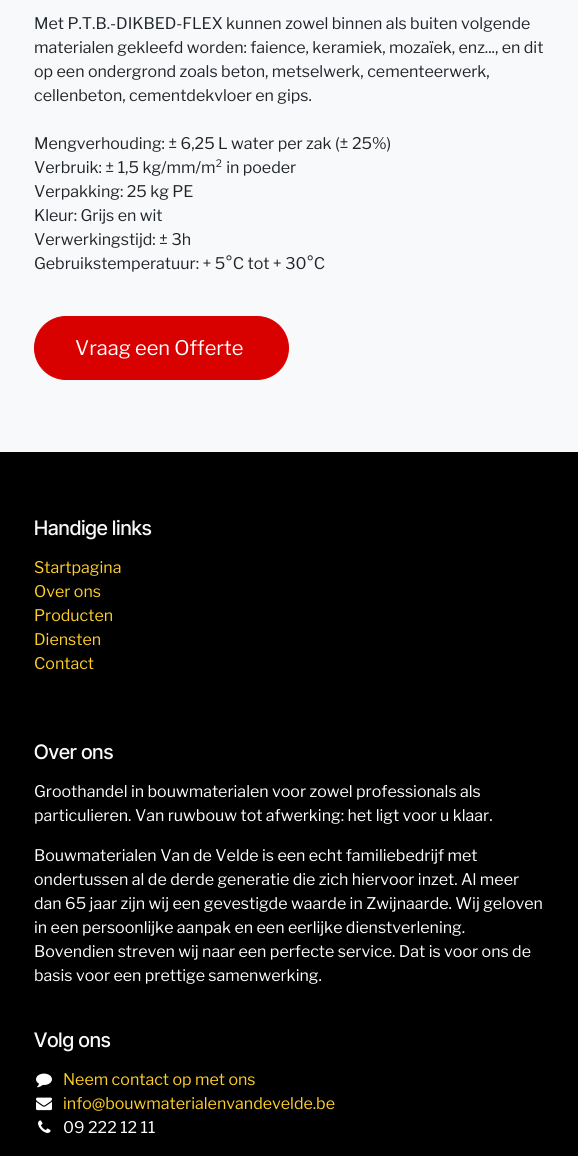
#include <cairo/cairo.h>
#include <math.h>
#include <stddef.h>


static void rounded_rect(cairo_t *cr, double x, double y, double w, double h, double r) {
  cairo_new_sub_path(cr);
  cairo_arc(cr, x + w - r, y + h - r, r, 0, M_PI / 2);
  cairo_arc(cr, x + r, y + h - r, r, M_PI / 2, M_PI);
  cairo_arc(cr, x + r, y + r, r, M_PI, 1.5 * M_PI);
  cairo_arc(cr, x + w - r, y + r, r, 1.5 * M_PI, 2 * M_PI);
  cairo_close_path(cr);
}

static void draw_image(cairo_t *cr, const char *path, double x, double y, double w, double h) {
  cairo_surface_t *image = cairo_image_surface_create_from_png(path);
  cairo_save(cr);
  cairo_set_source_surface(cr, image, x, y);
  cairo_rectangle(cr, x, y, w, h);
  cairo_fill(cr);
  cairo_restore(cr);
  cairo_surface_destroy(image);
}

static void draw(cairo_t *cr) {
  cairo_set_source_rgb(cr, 248 / 255.0, 249 / 255.0, 250 / 255.0);
  cairo_paint(cr);
  cairo_set_source_rgb(cr, 217 / 255.0, 0, 0);
  rounded_rect(cr, 34.5, 316.5, 254, 63, 31.5);
  cairo_fill_preserve(cr);
  cairo_set_line_width(cr, 1);
  cairo_stroke(cr);
  cairo_set_source_rgb(cr, 0, 0, 0);
  cairo_rectangle(cr, 0, 452, 578, 704);
  cairo_fill(cr);
  draw_image(cr, "images/1.png", 36, 1073, 16, 15);
  draw_image(cr, "images/2.png", 36, 1097, 16, 14);
  draw_image(cr, "images/3.png", 38, 1120, 13, 13);
  cairo_select_font_face(cr, "Libre Franklin", CAIRO_FONT_SLANT_NORMAL, CAIRO_FONT_WEIGHT_NORMAL);
  cairo_set_font_size(cr, 16);
  cairo_set_source_rgb(cr, 33 / 255.0, 37 / 255.0, 41 / 255.0);
  cairo_move_to(cr, 34, 29);
  cairo_show_text(cr, "Met P.T.B.-DIKBED-FLEX kunnen zowel binnen als buiten volgende");
  cairo_move_to(cr, 34, 53);
  cairo_show_text(cr, "materialen gekleefd worden: faience, keramiek, mozaïek, enz..., en dit");
  cairo_move_to(cr, 34, 77);
  cairo_show_text(cr, "op een ondergrond zoals beton, metselwerk, cementeerwerk,");
  cairo_move_to(cr, 34, 101);
  cairo_show_text(cr, "cellenbeton, cementdekvloer en gips.");
  cairo_move_to(cr, 34, 149);
  cairo_show_text(cr, "Mengverhouding: ± 6,25 L water per zak (± 25%)");
  cairo_move_to(cr, 34, 173);
  cairo_show_text(cr, "Verbruik: ± 1,5 kg/mm/m² in poeder");
  cairo_move_to(cr, 34, 197);
  cairo_show_text(cr, "Verpakking: 25 kg PE");
  cairo_move_to(cr, 34, 221);
  cairo_show_text(cr, "Kleur: Grijs en wit");
  cairo_move_to(cr, 34, 245);
  cairo_show_text(cr, "Verwerkingstijd: ± 3h");
  cairo_move_to(cr, 34, 269);
  cairo_show_text(cr, "Gebruikstemperatuur: + 5°C tot + 30°C");
  cairo_set_font_size(cr, 20);
  cairo_set_source_rgb(cr, 1, 1, 1);
  cairo_move_to(cr, 75, 355);
  cairo_show_text(cr, "Vraag een Offerte");
  cairo_select_font_face(cr, "Inter Tight Medium", CAIRO_FONT_SLANT_NORMAL, CAIRO_FONT_WEIGHT_NORMAL);
  cairo_set_source_rgb(cr, 248 / 255.0, 249 / 255.0, 250 / 255.0);
  cairo_move_to(cr, 34, 535);
  cairo_show_text(cr, "Handige links");
  cairo_select_font_face(cr, "Libre Franklin", CAIRO_FONT_SLANT_NORMAL, CAIRO_FONT_WEIGHT_NORMAL);
  cairo_set_font_size(cr, 16);
  cairo_set_source_rgb(cr, 1, 207 / 255.0, 40 / 255.0);
  cairo_move_to(cr, 34, 573);
  cairo_show_text(cr, "Startpagina");
  cairo_move_to(cr, 34, 597);
  cairo_show_text(cr, "Over ons");
  cairo_move_to(cr, 34, 621);
  cairo_show_text(cr, "Producten");
  cairo_move_to(cr, 34, 645);
  cairo_show_text(cr, "Diensten");
  cairo_move_to(cr, 34, 669);
  cairo_show_text(cr, "Contact");
  cairo_select_font_face(cr, "Inter Tight Medium", CAIRO_FONT_SLANT_NORMAL, CAIRO_FONT_WEIGHT_NORMAL);
  cairo_set_font_size(cr, 20);
  cairo_set_source_rgb(cr, 248 / 255.0, 249 / 255.0, 250 / 255.0);
  cairo_move_to(cr, 34, 759);
  cairo_show_text(cr, "Over ons");
  cairo_select_font_face(cr, "Libre Franklin", CAIRO_FONT_SLANT_NORMAL, CAIRO_FONT_WEIGHT_NORMAL);
  cairo_set_font_size(cr, 16);
  cairo_set_source_rgb(cr, 1, 1, 1);
  cairo_move_to(cr, 34, 797);
  cairo_show_text(cr, "Groothandel in bouwmaterialen voor zowel professionals als");
  cairo_move_to(cr, 34, 821);
  cairo_show_text(cr, "particulieren. Van ruwbouw tot afwerking: het ligt voor u klaar.");
  cairo_move_to(cr, 34, 861);
  cairo_show_text(cr, "Bouwmaterialen Van de Velde is een echt familiebedrijf met");
  cairo_move_to(cr, 34, 885);
  cairo_show_text(cr, "ondertussen al de derde generatie die zich hiervoor inzet. Al meer");
  cairo_move_to(cr, 34, 909);
  cairo_show_text(cr, "dan 65 jaar zijn wij een gevestigde waarde in Zwijnaarde. Wij geloven");
  cairo_move_to(cr, 34, 933);
  cairo_show_text(cr, "in een persoonlijke aanpak en een eerlijke dienstverlening.");
  cairo_move_to(cr, 34, 957);
  cairo_show_text(cr, "Bovendien streven wij naar een perfecte service. Dat is voor ons de");
  cairo_move_to(cr, 34, 981);
  cairo_show_text(cr, "basis voor een prettige samenwerking.");
  cairo_select_font_face(cr, "Inter Tight Medium", CAIRO_FONT_SLANT_NORMAL, CAIRO_FONT_WEIGHT_NORMAL);
  cairo_set_font_size(cr, 20);
  cairo_set_source_rgb(cr, 248 / 255.0, 249 / 255.0, 250 / 255.0);
  cairo_move_to(cr, 34, 1047);
  cairo_show_text(cr, "Volg ons");
  cairo_select_font_face(cr, "Libre Franklin", CAIRO_FONT_SLANT_NORMAL, CAIRO_FONT_WEIGHT_NORMAL);
  cairo_set_font_size(cr, 16);
  cairo_set_source_rgb(cr, 1, 207 / 255.0, 40 / 255.0);
  cairo_move_to(cr, 63, 1085);
  cairo_show_text(cr, "Neem contact op met ons");
  cairo_move_to(cr, 63, 1109);
  cairo_show_text(cr, "info@bouwmaterialenvandevelde.be");
  cairo_set_source_rgb(cr, 1, 1, 1);
  cairo_move_to(cr, 63, 1133);
  cairo_show_text(cr, "09 222 12 11");
}

int main(void) {
  cairo_surface_t *surface = cairo_image_surface_create(CAIRO_FORMAT_RGB24, 578, 1156);
  cairo_t *cr = cairo_create(surface);
  cairo_font_options_t *options = cairo_font_options_create();
  cairo_font_options_set_hint_metrics(options, CAIRO_HINT_METRICS_OFF);
  cairo_font_options_set_hint_style(options, CAIRO_HINT_STYLE_NONE);
  cairo_set_font_options(cr, options);
  cairo_set_miter_limit(cr, 4);
  draw(cr);
  cairo_surface_write_to_png(surface, "out.png");
  cairo_font_options_destroy(options);
  cairo_destroy(cr);
  cairo_surface_destroy(surface);
  return 0;
}
